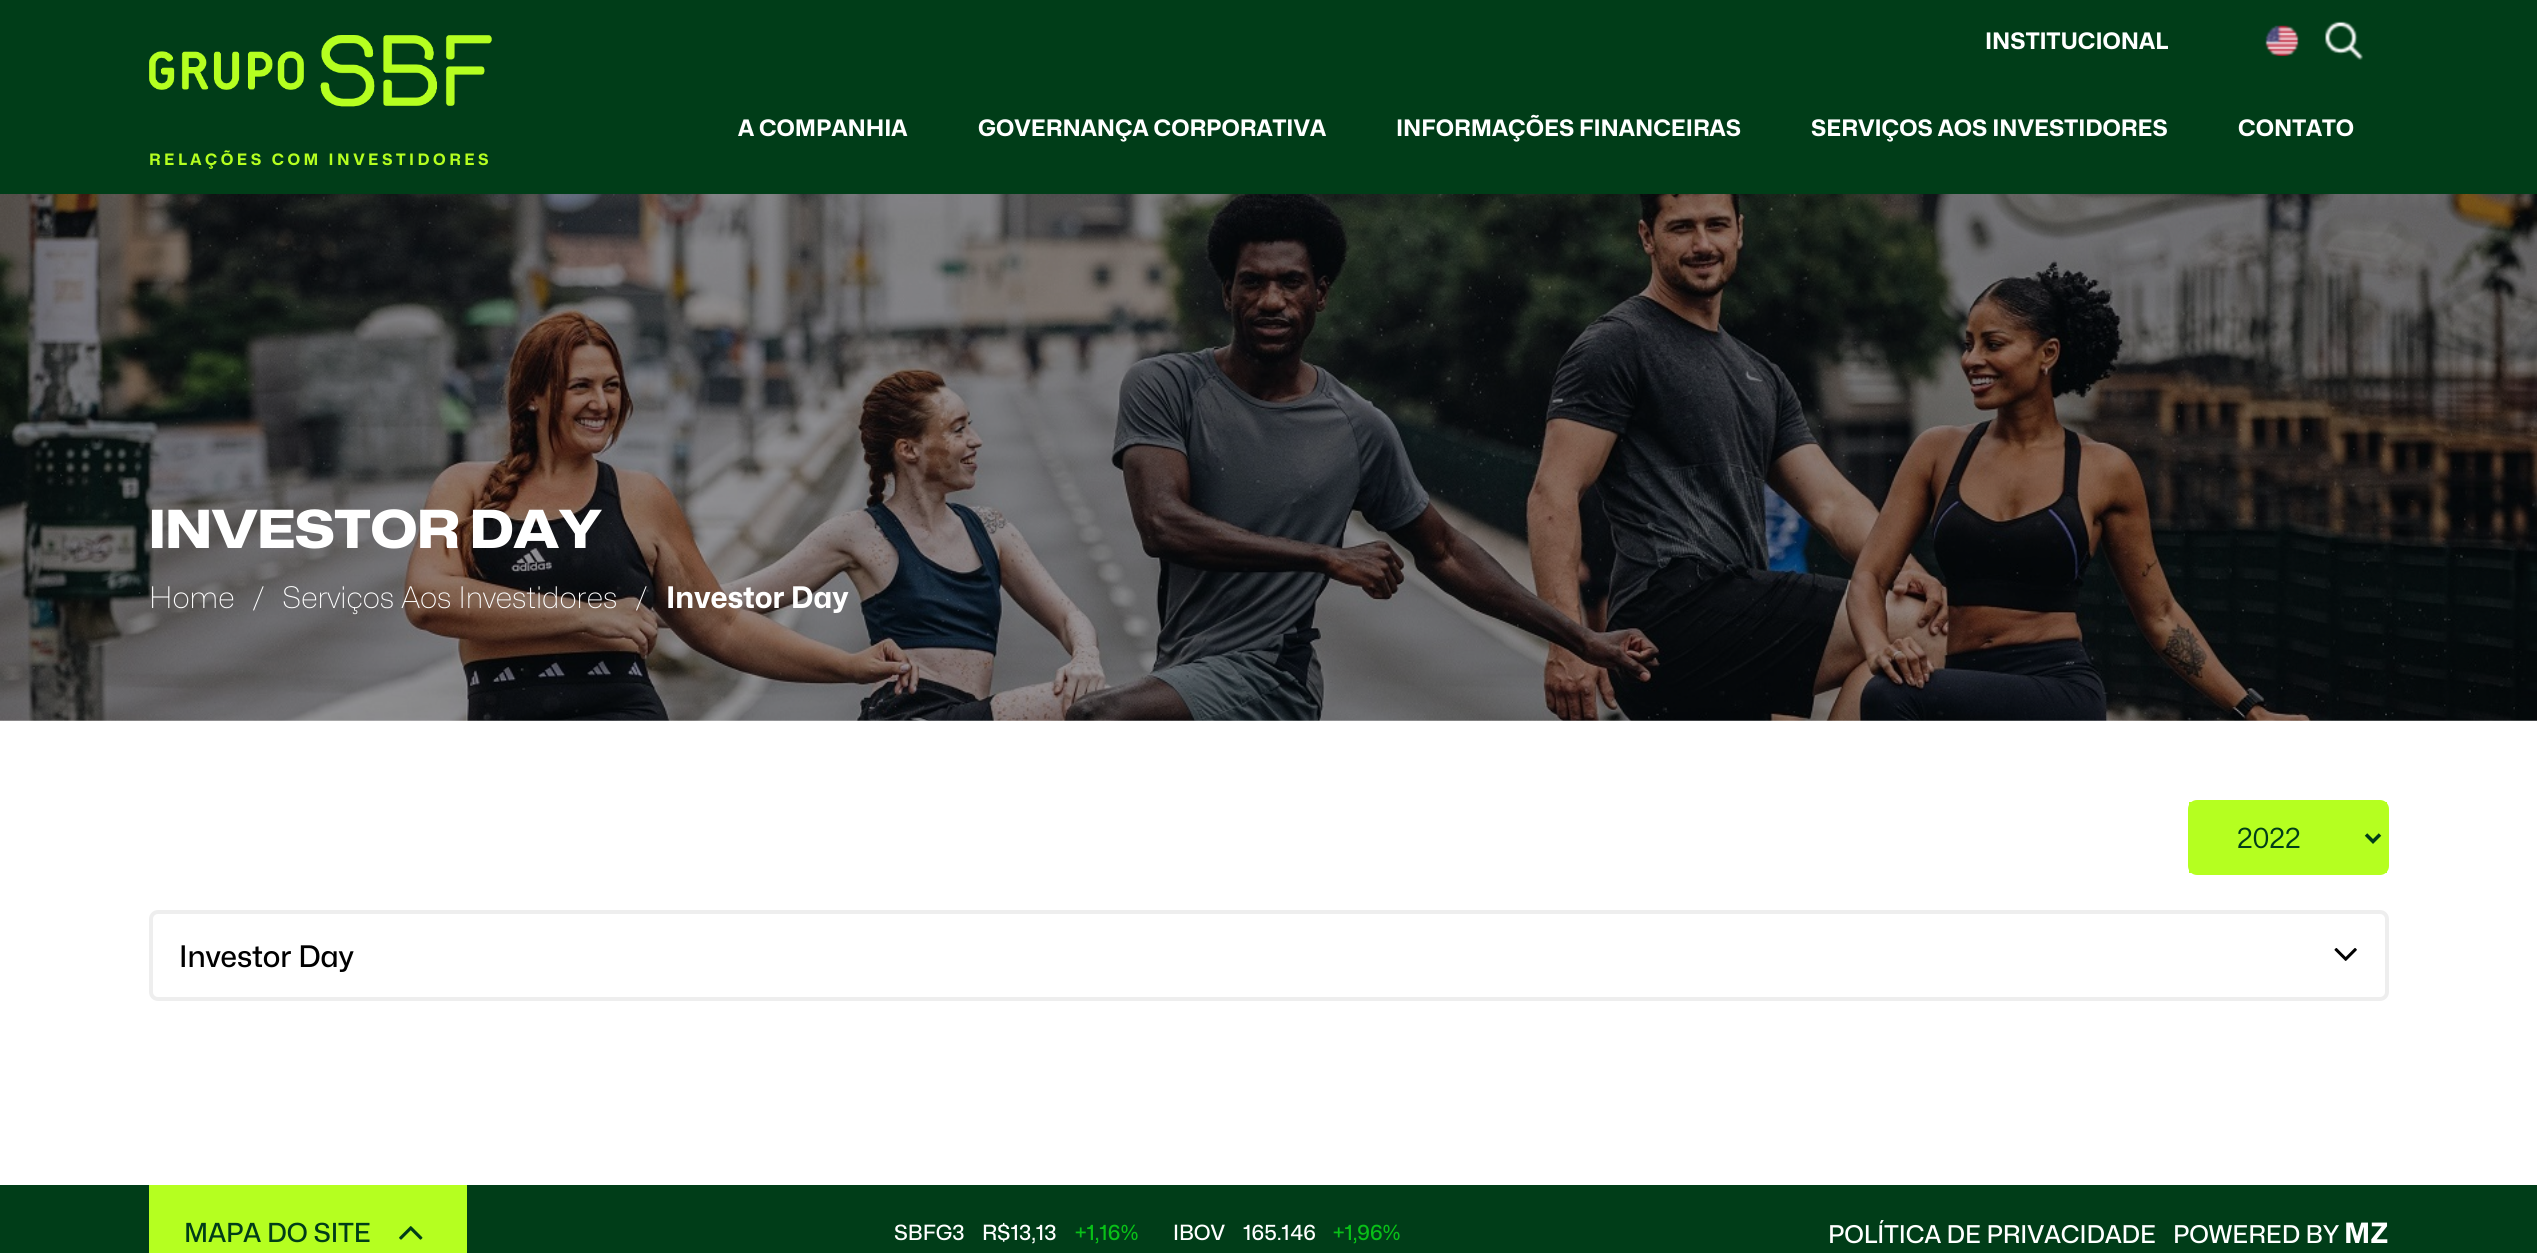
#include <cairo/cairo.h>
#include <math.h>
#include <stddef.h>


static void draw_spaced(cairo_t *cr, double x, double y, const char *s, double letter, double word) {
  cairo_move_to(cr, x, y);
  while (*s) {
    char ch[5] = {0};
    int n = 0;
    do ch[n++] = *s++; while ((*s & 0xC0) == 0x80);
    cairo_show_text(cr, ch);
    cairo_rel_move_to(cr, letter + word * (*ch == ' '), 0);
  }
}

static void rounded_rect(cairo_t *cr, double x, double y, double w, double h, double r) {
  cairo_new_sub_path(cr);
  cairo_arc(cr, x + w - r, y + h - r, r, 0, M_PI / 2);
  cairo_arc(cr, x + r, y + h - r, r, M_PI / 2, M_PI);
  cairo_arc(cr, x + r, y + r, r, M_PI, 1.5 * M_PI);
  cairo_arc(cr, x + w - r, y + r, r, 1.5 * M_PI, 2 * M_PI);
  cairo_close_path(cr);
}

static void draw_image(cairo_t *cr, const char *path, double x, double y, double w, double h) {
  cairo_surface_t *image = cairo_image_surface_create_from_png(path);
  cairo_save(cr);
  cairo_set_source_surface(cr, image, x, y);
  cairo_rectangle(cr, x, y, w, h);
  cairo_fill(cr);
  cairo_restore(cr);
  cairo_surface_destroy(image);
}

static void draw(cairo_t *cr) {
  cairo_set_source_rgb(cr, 1, 1, 1);
  cairo_paint(cr);
  cairo_set_source_rgb(cr, 0, 61 / 255.0, 24 / 255.0);
  cairo_rectangle(cr, 0, 0, 2537, 194);
  cairo_fill(cr);
  draw_image(cr, "images/1.png", 2265, 25, 34, 31);
  draw_image(cr, "images/2.png", 2325, 21, 38, 39);
  draw_image(cr, "images/3.png", 149, 35, 343, 72);
  draw_image(cr, "images/4.png", 0, 194, 2537, 527);
  rounded_rect(cr, 2189, 801, 199, 73, 8);
  cairo_set_source_rgb(cr, 181 / 255.0, 1, 32 / 255.0);
  cairo_stroke(cr);
  cairo_rectangle(cr, 2189, 802, 198, 71);
  cairo_fill(cr);
  cairo_new_path(cr);
  cairo_move_to(cr, 2366, 834.5);
  cairo_line_to(cr, 2373, 841.5);
  cairo_line_to(cr, 2380, 834.5);
  cairo_set_source_rgb(cr, 0, 61 / 255.0, 24 / 255.0);
  cairo_set_line_width(cr, 3.5);
  cairo_stroke(cr);
  rounded_rect(cr, 151, 912, 2236, 87, 7);
  cairo_set_source_rgb(cr, 238 / 255.0, 238 / 255.0, 238 / 255.0);
  cairo_set_line_width(cr, 4);
  cairo_stroke(cr);
  draw_image(cr, "images/5.png", 2334, 948, 23, 13);
  cairo_set_source_rgb(cr, 0, 61 / 255.0, 24 / 255.0);
  cairo_rectangle(cr, 0, 1185, 2537, 68);
  cairo_fill(cr);
  cairo_set_source_rgb(cr, 181 / 255.0, 1, 32 / 255.0);
  cairo_rectangle(cr, 149, 1185, 318, 68);
  cairo_fill(cr);
  draw_image(cr, "images/6.png", 399, 1226, 24, 14);
  cairo_select_font_face(cr, "Mona Sans", CAIRO_FONT_SLANT_NORMAL, CAIRO_FONT_WEIGHT_BOLD);
  cairo_set_font_size(cr, 22.75);
  cairo_set_source_rgb(cr, 1, 1, 1);
  cairo_move_to(cr, 1985, 49);
  cairo_show_text(cr, "INSTITUCIONAL");
  cairo_move_to(cr, 738, 136);
  cairo_show_text(cr, "A COMPANHIA");
  cairo_move_to(cr, 978, 136);
  cairo_show_text(cr, "GOVERNANÇA CORPORATIVA");
  cairo_move_to(cr, 1396, 136);
  cairo_show_text(cr, "INFORMAÇÕES FINANCEIRAS");
  cairo_move_to(cr, 1811, 136);
  cairo_show_text(cr, "SERVIÇOS AOS INVESTIDORES");
  cairo_move_to(cr, 2238, 136);
  cairo_show_text(cr, "CONTATO");
  cairo_set_font_size(cr, 15.75);
  cairo_set_source_rgb(cr, 181 / 255.0, 1, 32 / 255.0);
  draw_spaced(cr, 149, 165, "RELAÇÕES COM INVESTIDORES", 3.5, 0);
  cairo_select_font_face(cr, "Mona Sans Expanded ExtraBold", CAIRO_FONT_SLANT_NORMAL, CAIRO_FONT_WEIGHT_NORMAL);
  cairo_set_font_size(cr, 52.5);
  cairo_set_source_rgb(cr, 1, 1, 1);
  cairo_move_to(cr, 149, 548);
  cairo_show_text(cr, "INVESTOR DAY");
  cairo_select_font_face(cr, "Mona Sans ExtraLight", CAIRO_FONT_SLANT_NORMAL, CAIRO_FONT_WEIGHT_NORMAL);
  cairo_set_font_size(cr, 29.75);
  cairo_move_to(cr, 149, 608);
  cairo_show_text(cr, "Home");
  cairo_move_to(cr, 252, 608);
  cairo_show_text(cr, "/");
  cairo_move_to(cr, 282, 608);
  cairo_show_text(cr, "Serviços Aos Investidores");
  cairo_move_to(cr, 635, 608);
  cairo_show_text(cr, "/");
  cairo_select_font_face(cr, "Mona Sans", CAIRO_FONT_SLANT_NORMAL, CAIRO_FONT_WEIGHT_BOLD);
  cairo_move_to(cr, 666, 608);
  cairo_show_text(cr, "Investor Day");
  cairo_select_font_face(cr, "Mona Sans", CAIRO_FONT_SLANT_NORMAL, CAIRO_FONT_WEIGHT_NORMAL);
  cairo_set_font_size(cr, 28);
  cairo_set_source_rgb(cr, 0, 61 / 255.0, 24 / 255.0);
  cairo_move_to(cr, 2237, 848);
  cairo_show_text(cr, "2022");
  cairo_select_font_face(cr, "Mona Sans Medium", CAIRO_FONT_SLANT_NORMAL, CAIRO_FONT_WEIGHT_NORMAL);
  cairo_set_font_size(cr, 29.75);
  cairo_set_source_rgb(cr, 0, 0, 0);
  cairo_move_to(cr, 179, 967);
  cairo_show_text(cr, "Investor Day");
  cairo_set_font_size(cr, 26.25);
  cairo_set_source_rgb(cr, 0, 61 / 255.0, 24 / 255.0);
  cairo_move_to(cr, 184, 1242);
  cairo_show_text(cr, "MAPA DO SITE");
  cairo_set_font_size(cr, 21);
  cairo_set_source_rgb(cr, 1, 1, 1);
  cairo_move_to(cr, 894, 1240);
  cairo_show_text(cr, "SBFG3");
  cairo_move_to(cr, 982, 1240);
  cairo_show_text(cr, "R$13,13");
  cairo_set_source_rgb(cr, 8 / 255.0, 193 / 255.0, 23 / 255.0);
  cairo_move_to(cr, 1075, 1240);
  cairo_show_text(cr, "+1,16%");
  cairo_set_source_rgb(cr, 1, 1, 1);
  cairo_move_to(cr, 1173, 1240);
  cairo_show_text(cr, "IBOV");
  cairo_move_to(cr, 1243, 1240);
  cairo_show_text(cr, "165.146");
  cairo_set_source_rgb(cr, 8 / 255.0, 193 / 255.0, 23 / 255.0);
  cairo_move_to(cr, 1333, 1240);
  cairo_show_text(cr, "+1,96%");
  cairo_set_font_size(cr, 24.5);
  cairo_set_source_rgb(cr, 1, 1, 1);
  cairo_move_to(cr, 1828, 1243);
  cairo_show_text(cr, "POLÍTICA DE PRIVACIDADE");
  cairo_move_to(cr, 2173, 1243);
  cairo_show_text(cr, "POWERED BY");
  cairo_select_font_face(cr, "Mona Sans", CAIRO_FONT_SLANT_NORMAL, CAIRO_FONT_WEIGHT_BOLD);
  cairo_set_font_size(cr, 28);
  cairo_move_to(cr, 2344, 1243);
  cairo_show_text(cr, "MZ");
}

int main(void) {
  cairo_surface_t *surface = cairo_image_surface_create(CAIRO_FORMAT_RGB24, 2537, 1253);
  cairo_t *cr = cairo_create(surface);
  cairo_font_options_t *options = cairo_font_options_create();
  cairo_font_options_set_hint_metrics(options, CAIRO_HINT_METRICS_OFF);
  cairo_font_options_set_hint_style(options, CAIRO_HINT_STYLE_NONE);
  cairo_set_font_options(cr, options);
  cairo_set_miter_limit(cr, 4);
  draw(cr);
  cairo_surface_write_to_png(surface, "out.png");
  cairo_font_options_destroy(options);
  cairo_destroy(cr);
  cairo_surface_destroy(surface);
  return 0;
}
